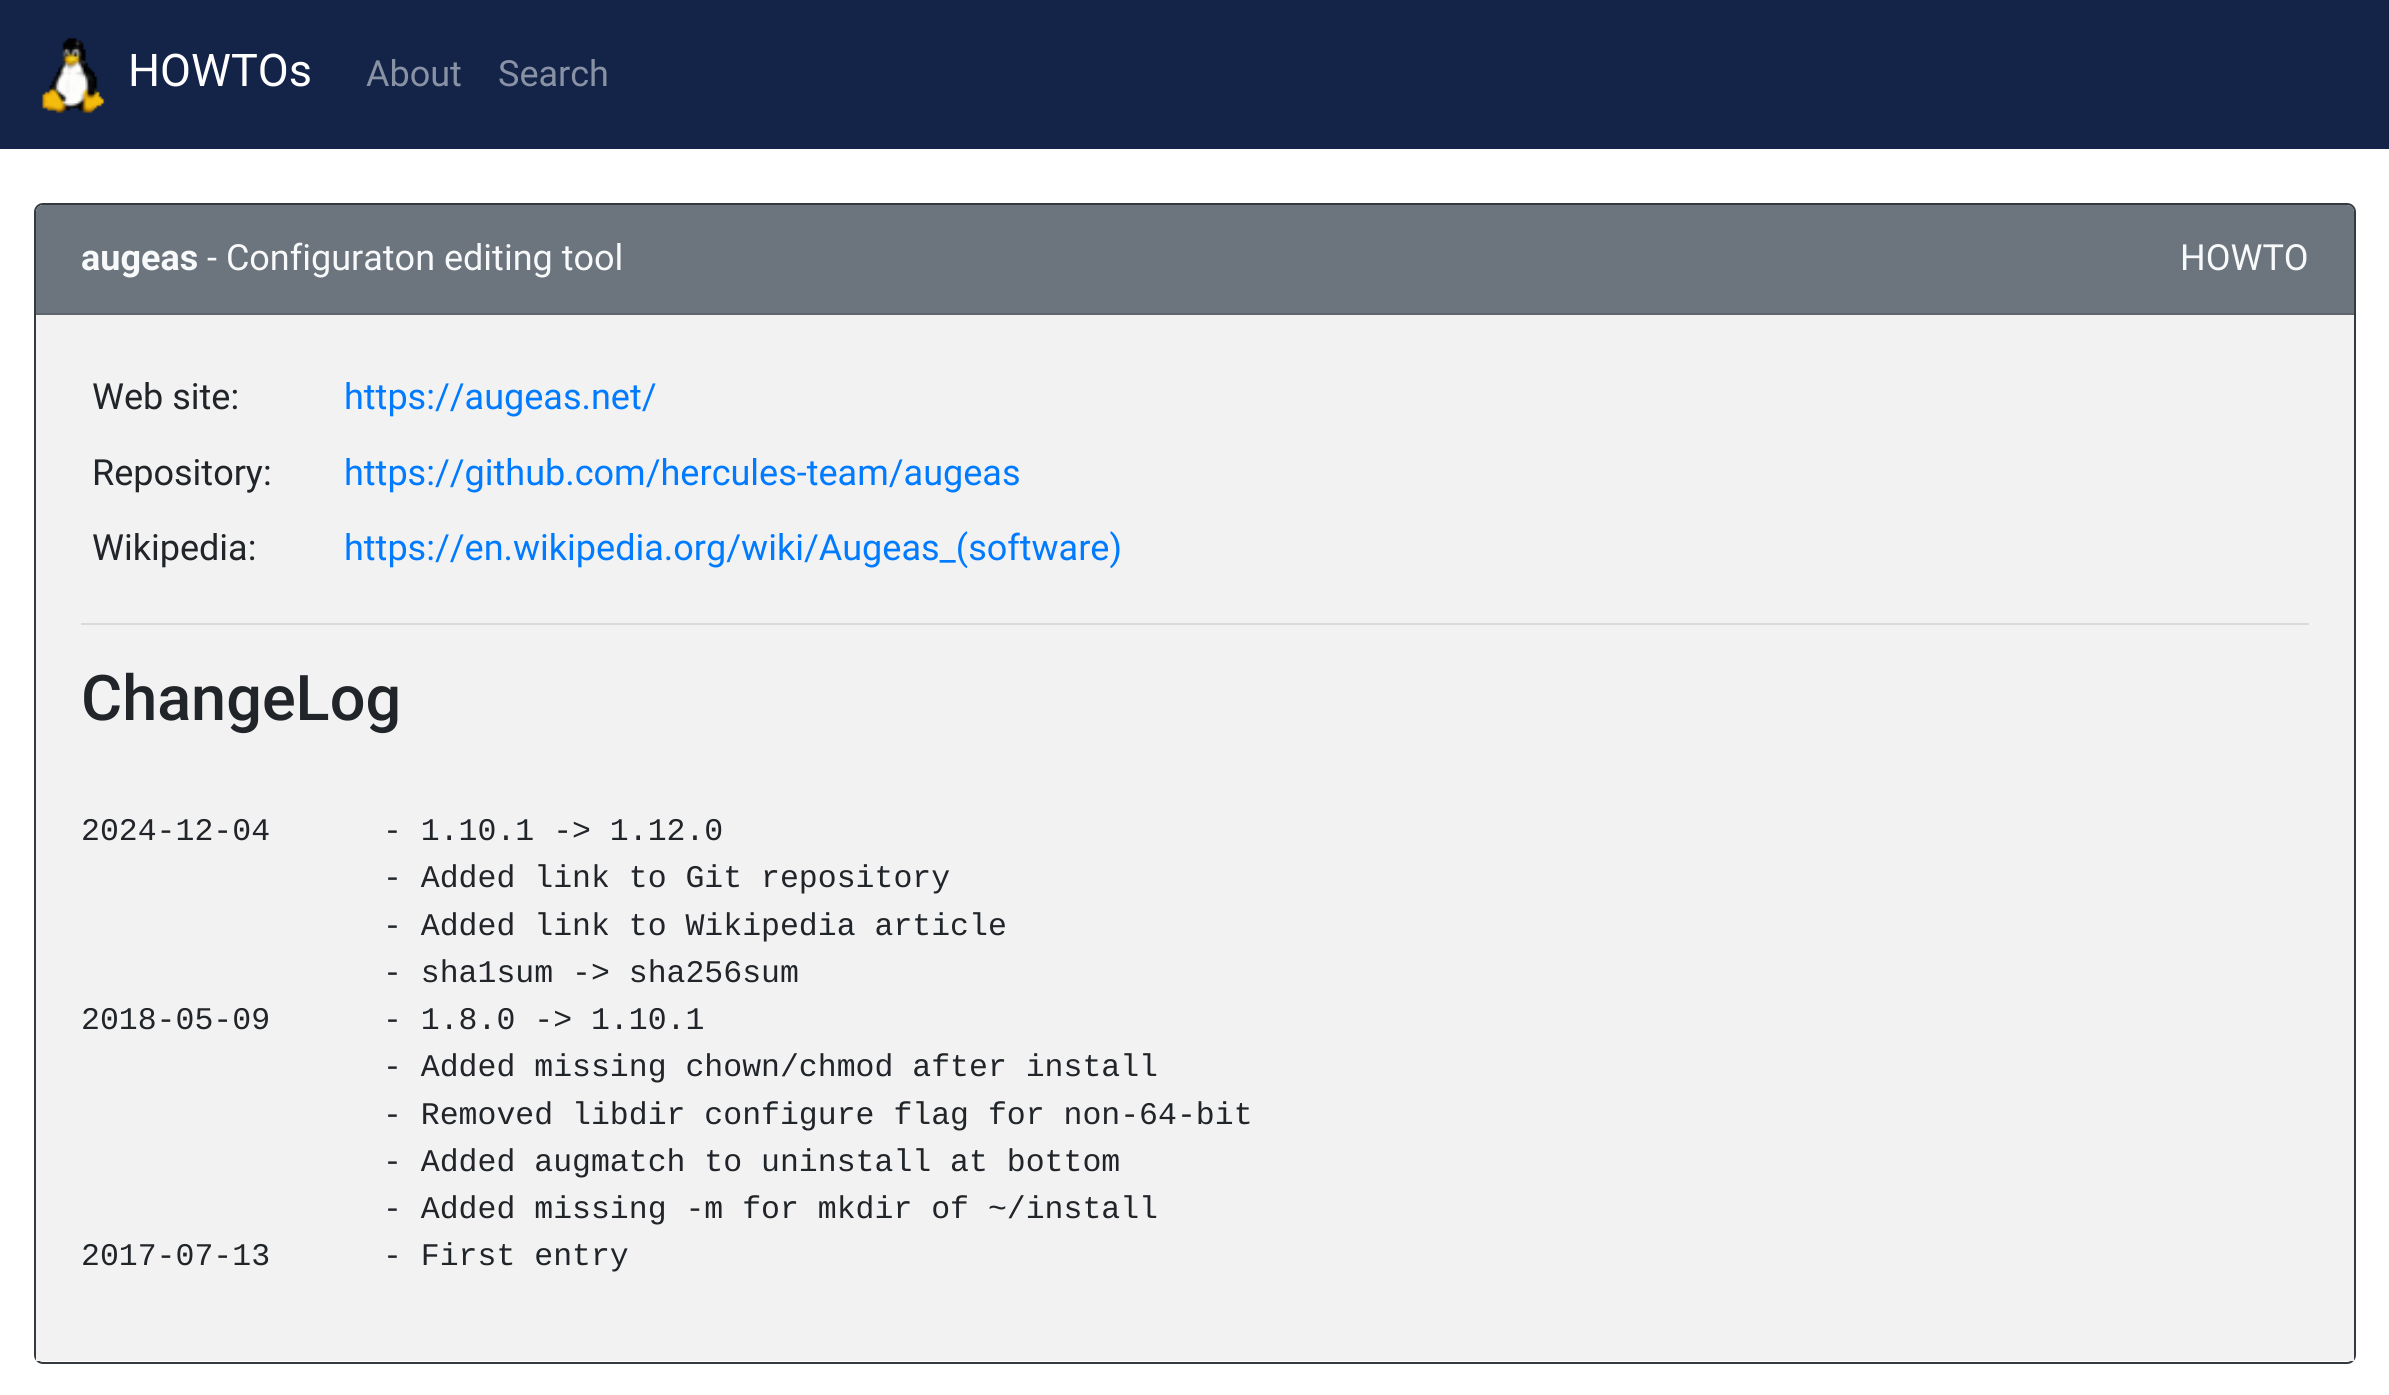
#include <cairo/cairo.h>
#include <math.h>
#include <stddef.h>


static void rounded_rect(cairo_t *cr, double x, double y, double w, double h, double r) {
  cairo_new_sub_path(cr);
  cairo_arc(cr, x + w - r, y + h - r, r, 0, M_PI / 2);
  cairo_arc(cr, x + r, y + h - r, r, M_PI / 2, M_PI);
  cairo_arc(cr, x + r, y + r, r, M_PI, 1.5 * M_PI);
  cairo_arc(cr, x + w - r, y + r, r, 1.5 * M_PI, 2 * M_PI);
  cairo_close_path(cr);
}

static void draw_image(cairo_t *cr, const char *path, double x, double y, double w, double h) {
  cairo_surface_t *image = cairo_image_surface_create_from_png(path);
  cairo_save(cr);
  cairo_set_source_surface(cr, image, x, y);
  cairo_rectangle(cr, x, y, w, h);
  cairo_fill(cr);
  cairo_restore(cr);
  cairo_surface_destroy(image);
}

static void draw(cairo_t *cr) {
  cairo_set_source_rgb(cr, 1, 1, 1);
  cairo_paint(cr);
  cairo_set_source_rgb(cr, 19 / 255.0, 36 / 255.0, 72 / 255.0);
  cairo_rectangle(cr, 0, 0, 2389, 149);
  cairo_fill(cr);
  draw_image(cr, "images/1.png", 42, 37, 63, 77);
  rounded_rect(cr, 35, 204, 2320, 1159, 8);
  cairo_set_source_rgb(cr, 52 / 255.0, 58 / 255.0, 64 / 255.0);
  cairo_stroke(cr);
  cairo_set_source_rgb(cr, 108 / 255.0, 117 / 255.0, 125 / 255.0);
  cairo_new_path(cr);
  cairo_move_to(cr, 43, 205);
  cairo_line_to(cr, 2347, 205);
  cairo_curve_to(cr, 2351, 205, 2354, 208, 2354, 212);
  cairo_line_to(cr, 2354, 315);
  cairo_line_to(cr, 36, 315);
  cairo_line_to(cr, 36, 212);
  cairo_curve_to(cr, 36, 208, 39, 205, 43, 205);
  cairo_close_path(cr);
  cairo_fill(cr);
  cairo_set_source_rgb(cr, 95 / 255.0, 102 / 255.0, 109 / 255.0);
  cairo_rectangle(cr, 36, 313, 2318, 2);
  cairo_fill(cr);
  cairo_set_source_rgb(cr, 242 / 255.0, 242 / 255.0, 242 / 255.0);
  cairo_rectangle(cr, 36, 315, 2318, 1046);
  cairo_fill(cr);
  cairo_set_source_rgb(cr, 218 / 255.0, 218 / 255.0, 218 / 255.0);
  cairo_rectangle(cr, 81, 623, 2228, 2);
  cairo_fill(cr);
  cairo_select_font_face(cr, "Roboto", CAIRO_FONT_SLANT_NORMAL, CAIRO_FONT_WEIGHT_NORMAL);
  cairo_set_font_size(cr, 45);
  cairo_set_source_rgb(cr, 1, 1, 1);
  cairo_move_to(cr, 128, 86);
  cairo_show_text(cr, "HOWTOs");
  cairo_set_font_size(cr, 36);
  cairo_set_source_rgb(cr, 137 / 255.0, 146 / 255.0, 164 / 255.0);
  cairo_move_to(cr, 366, 86);
  cairo_show_text(cr, "About");
  cairo_move_to(cr, 498, 86);
  cairo_show_text(cr, "Search");
  cairo_select_font_face(cr, "Roboto", CAIRO_FONT_SLANT_NORMAL, CAIRO_FONT_WEIGHT_BOLD);
  cairo_set_source_rgb(cr, 248 / 255.0, 249 / 255.0, 250 / 255.0);
  cairo_move_to(cr, 81, 270);
  cairo_show_text(cr, "augeas");
  cairo_select_font_face(cr, "Roboto", CAIRO_FONT_SLANT_NORMAL, CAIRO_FONT_WEIGHT_NORMAL);
  cairo_move_to(cr, 207, 270);
  cairo_show_text(cr, "- Configuraton editing tool");
  cairo_move_to(cr, 2180, 270);
  cairo_show_text(cr, "HOWTO");
  cairo_set_source_rgb(cr, 33 / 255.0, 37 / 255.0, 41 / 255.0);
  cairo_move_to(cr, 92, 409);
  cairo_show_text(cr, "Web site:");
  cairo_set_source_rgb(cr, 0, 123 / 255.0, 1);
  cairo_move_to(cr, 344, 409);
  cairo_show_text(cr, "https://augeas.net/");
  cairo_set_source_rgb(cr, 33 / 255.0, 37 / 255.0, 41 / 255.0);
  cairo_move_to(cr, 92, 485);
  cairo_show_text(cr, "Repository:");
  cairo_set_source_rgb(cr, 0, 123 / 255.0, 1);
  cairo_move_to(cr, 344, 485);
  cairo_show_text(cr, "https://github.com/hercules-team/augeas");
  cairo_set_source_rgb(cr, 33 / 255.0, 37 / 255.0, 41 / 255.0);
  cairo_move_to(cr, 92, 560);
  cairo_show_text(cr, "Wikipedia:");
  cairo_set_source_rgb(cr, 0, 123 / 255.0, 1);
  cairo_move_to(cr, 344, 560);
  cairo_show_text(cr, "https://en.wikipedia.org/wiki/Augeas_(software)");
  cairo_select_font_face(cr, "Roboto Medium", CAIRO_FONT_SLANT_NORMAL, CAIRO_FONT_WEIGHT_NORMAL);
  cairo_set_font_size(cr, 63);
  cairo_set_source_rgb(cr, 33 / 255.0, 37 / 255.0, 41 / 255.0);
  cairo_move_to(cr, 81, 720);
  cairo_show_text(cr, "ChangeLog");
  cairo_select_font_face(cr, "Liberation Mono", CAIRO_FONT_SLANT_NORMAL, CAIRO_FONT_WEIGHT_NORMAL);
  cairo_set_font_size(cr, 31.5);
  cairo_move_to(cr, 81, 840);
  cairo_show_text(cr, "2024-12-04");
  cairo_move_to(cr, 383, 840);
  cairo_show_text(cr, "- 1.10.1 -> 1.12.0");
  cairo_move_to(cr, 383, 887);
  cairo_show_text(cr, "- Added link to Git repository");
  cairo_move_to(cr, 383, 935);
  cairo_show_text(cr, "- Added link to Wikipedia article");
  cairo_move_to(cr, 383, 982);
  cairo_show_text(cr, "- sha1sum -> sha256sum");
  cairo_move_to(cr, 81, 1029);
  cairo_show_text(cr, "2018-05-09");
  cairo_move_to(cr, 383, 1029);
  cairo_show_text(cr, "- 1.8.0 -> 1.10.1");
  cairo_move_to(cr, 383, 1076);
  cairo_show_text(cr, "- Added missing chown/chmod after install");
  cairo_move_to(cr, 383, 1124);
  cairo_show_text(cr, "- Removed libdir configure flag for non-64-bit");
  cairo_move_to(cr, 383, 1171);
  cairo_show_text(cr, "- Added augmatch to uninstall at bottom");
  cairo_move_to(cr, 383, 1218);
  cairo_show_text(cr, "- Added missing -m for mkdir of ~/install");
  cairo_move_to(cr, 81, 1265);
  cairo_show_text(cr, "2017-07-13");
  cairo_move_to(cr, 383, 1265);
  cairo_show_text(cr, "- First entry");
}

int main(void) {
  cairo_surface_t *surface = cairo_image_surface_create(CAIRO_FORMAT_RGB24, 2389, 1395);
  cairo_t *cr = cairo_create(surface);
  cairo_font_options_t *options = cairo_font_options_create();
  cairo_font_options_set_hint_metrics(options, CAIRO_HINT_METRICS_OFF);
  cairo_font_options_set_hint_style(options, CAIRO_HINT_STYLE_NONE);
  cairo_set_font_options(cr, options);
  cairo_set_miter_limit(cr, 4);
  draw(cr);
  cairo_surface_write_to_png(surface, "out.png");
  cairo_font_options_destroy(options);
  cairo_destroy(cr);
  cairo_surface_destroy(surface);
  return 0;
}
